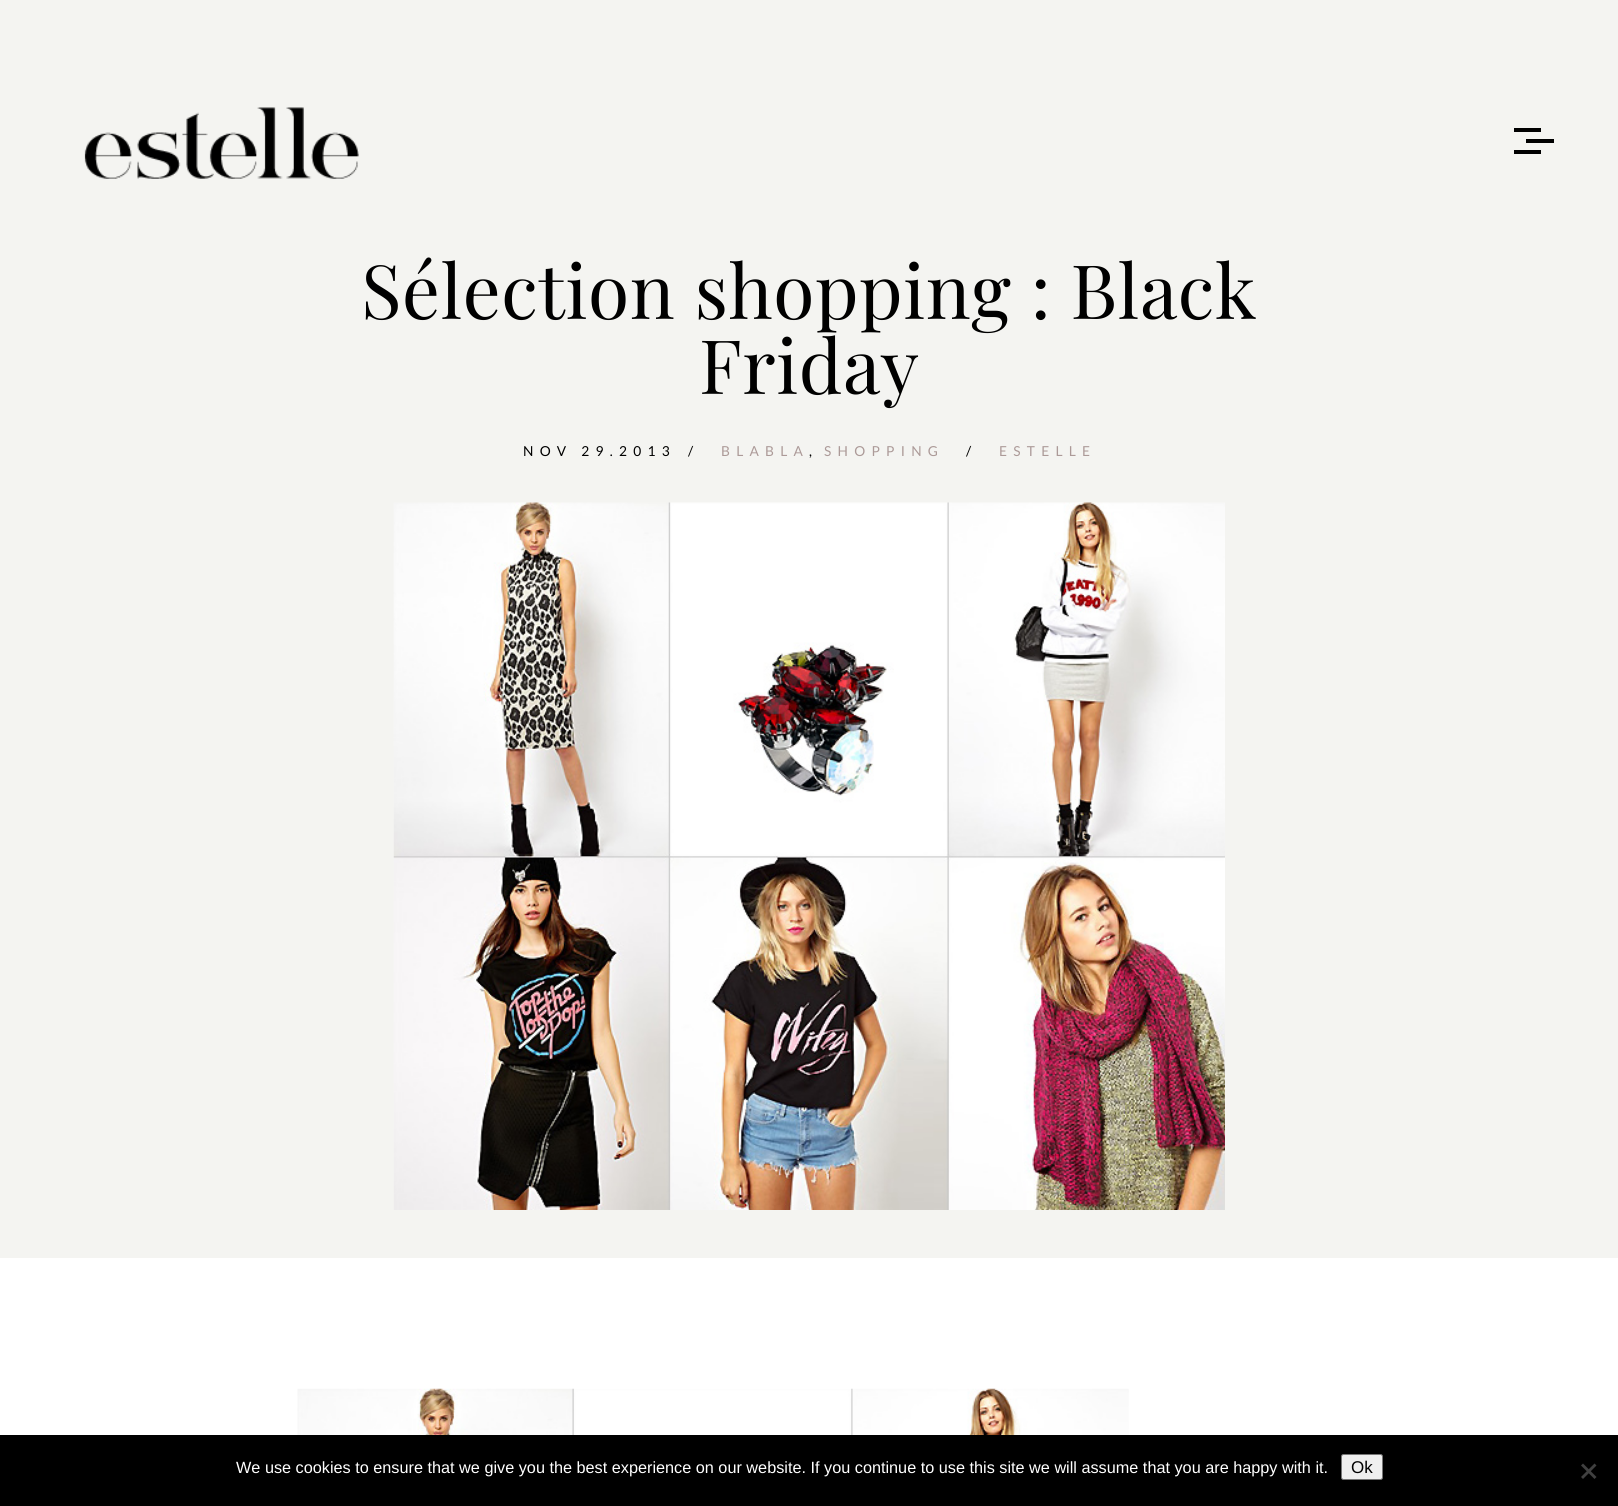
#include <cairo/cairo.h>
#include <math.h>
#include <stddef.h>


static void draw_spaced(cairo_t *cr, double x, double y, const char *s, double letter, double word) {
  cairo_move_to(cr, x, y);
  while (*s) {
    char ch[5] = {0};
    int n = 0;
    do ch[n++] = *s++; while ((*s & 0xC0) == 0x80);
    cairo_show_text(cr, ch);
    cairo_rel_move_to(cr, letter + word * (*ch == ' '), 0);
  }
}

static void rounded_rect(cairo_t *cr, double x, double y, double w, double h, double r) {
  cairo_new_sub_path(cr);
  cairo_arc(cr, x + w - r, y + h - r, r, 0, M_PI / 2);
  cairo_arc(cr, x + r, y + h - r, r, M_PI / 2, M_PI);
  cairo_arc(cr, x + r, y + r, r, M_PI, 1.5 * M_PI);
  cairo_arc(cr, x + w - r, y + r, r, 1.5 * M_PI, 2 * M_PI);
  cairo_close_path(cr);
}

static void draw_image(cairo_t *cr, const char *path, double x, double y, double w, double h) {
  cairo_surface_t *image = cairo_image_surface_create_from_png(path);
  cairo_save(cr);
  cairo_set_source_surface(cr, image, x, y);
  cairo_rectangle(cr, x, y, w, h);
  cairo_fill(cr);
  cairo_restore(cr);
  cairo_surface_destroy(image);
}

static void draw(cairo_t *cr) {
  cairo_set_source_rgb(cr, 244 / 255.0, 244 / 255.0, 241 / 255.0);
  cairo_paint(cr);
  draw_image(cr, "images/1.png", 84, 107, 275, 72);
  cairo_set_source_rgb(cr, 0, 0, 0);
  cairo_rectangle(cr, 1514, 128, 27, 4);
  cairo_fill(cr);
  cairo_rectangle(cr, 1526, 139, 28, 4);
  cairo_fill(cr);
  cairo_rectangle(cr, 1514, 150, 27, 4);
  cairo_fill(cr);
  draw_image(cr, "images/2.png", 393, 502, 832, 708);
  cairo_set_source_rgb(cr, 1, 1, 1);
  cairo_rectangle(cr, 0, 1258, 1618, 177);
  cairo_fill(cr);
  draw_image(cr, "images/3.png", 297, 1388, 832, 47);
  cairo_set_source_rgb(cr, 0, 0, 0);
  cairo_rectangle(cr, 0, 1435, 1618, 71);
  cairo_fill(cr);
  cairo_set_source_rgb(cr, 239 / 255.0, 239 / 255.0, 239 / 255.0);
  rounded_rect(cr, 1341.5, 1454.5, 41, 25, 2);
  cairo_fill_preserve(cr);
  cairo_set_source_rgb(cr, 118 / 255.0, 118 / 255.0, 118 / 255.0);
  cairo_set_line_width(cr, 1);
  cairo_stroke(cr);
  cairo_set_source_rgb(cr, 64 / 255.0, 64 / 255.0, 64 / 255.0);
  cairo_new_path(cr);
  cairo_move_to(cr, 1594.5, 1463.5);
  cairo_line_to(cr, 1596.5, 1465.5);
  cairo_line_to(cr, 1583, 1479);
  cairo_line_to(cr, 1581, 1477);
  cairo_close_path(cr);
  cairo_fill(cr);
  cairo_new_path(cr);
  cairo_move_to(cr, 1581, 1465.5);
  cairo_line_to(cr, 1583, 1463.5);
  cairo_line_to(cr, 1596.5, 1477);
  cairo_line_to(cr, 1594.5, 1479);
  cairo_close_path(cr);
  cairo_fill(cr);
  cairo_select_font_face(cr, "Playfair Display", CAIRO_FONT_SLANT_NORMAL, CAIRO_FONT_WEIGHT_NORMAL);
  cairo_set_font_size(cr, 75);
  cairo_set_source_rgb(cr, 0, 0, 0);
  draw_spaced(cr, 361, 319, "Sélection shopping : Black", 0.6, 0);
  draw_spaced(cr, 699, 394, "Friday", 0.6, 0);
  cairo_select_font_face(cr, "Lato", CAIRO_FONT_SLANT_NORMAL, CAIRO_FONT_WEIGHT_NORMAL);
  cairo_set_font_size(cr, 13.75);
  draw_spaced(cr, 523, 456, "NOV 29.2013", 6.25, 0);
  draw_spaced(cr, 688, 456, "/", 6.25, 0);
  cairo_set_source_rgb(cr, 172 / 255.0, 154 / 255.0, 152 / 255.0);
  draw_spaced(cr, 721, 456, "BLABLA", 6.25, 0);
  cairo_set_source_rgb(cr, 0, 0, 0);
  draw_spaced(cr, 809, 456, ",", 6.25, 0);
  cairo_set_source_rgb(cr, 172 / 255.0, 154 / 255.0, 152 / 255.0);
  draw_spaced(cr, 824, 456, "SHOPPING", 6.25, 0);
  cairo_set_source_rgb(cr, 0, 0, 0);
  draw_spaced(cr, 966, 456, "/", 6.25, 0);
  cairo_set_source_rgb(cr, 172 / 255.0, 154 / 255.0, 152 / 255.0);
  draw_spaced(cr, 999, 456, "ESTELLE", 6.25, 0);
  cairo_select_font_face(cr, "Liberation Sans", CAIRO_FONT_SLANT_NORMAL, CAIRO_FONT_WEIGHT_NORMAL);
  cairo_set_font_size(cr, 16.25);
  cairo_set_source_rgb(cr, 1, 1, 1);
  cairo_move_to(cr, 236, 1473);
  cairo_show_text(cr, "We use cookies to ensure that we give you the best experience on our website. If you continue to use this site we will assume that you are happy with it.");
  cairo_set_font_size(cr, 17);
  cairo_set_source_rgb(cr, 0, 0, 0);
  cairo_move_to(cr, 1351, 1473);
  cairo_show_text(cr, "Ok");
}

int main(void) {
  cairo_surface_t *surface = cairo_image_surface_create(CAIRO_FORMAT_RGB24, 1618, 1506);
  cairo_t *cr = cairo_create(surface);
  cairo_font_options_t *options = cairo_font_options_create();
  cairo_font_options_set_hint_metrics(options, CAIRO_HINT_METRICS_OFF);
  cairo_font_options_set_hint_style(options, CAIRO_HINT_STYLE_NONE);
  cairo_set_font_options(cr, options);
  cairo_set_miter_limit(cr, 4);
  draw(cr);
  cairo_surface_write_to_png(surface, "out.png");
  cairo_font_options_destroy(options);
  cairo_destroy(cr);
  cairo_surface_destroy(surface);
  return 0;
}
